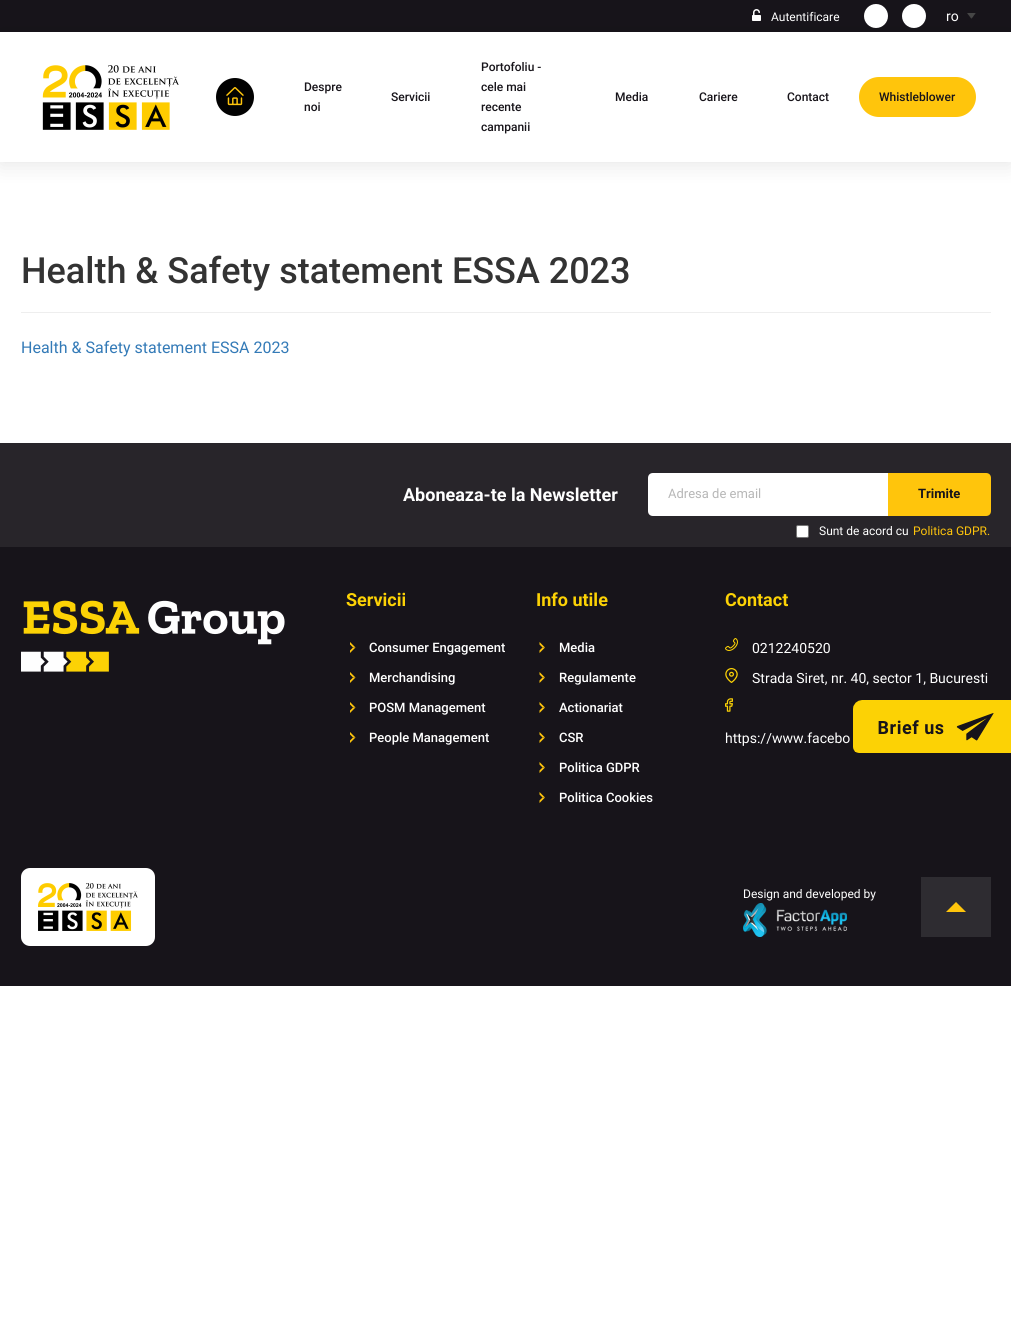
#include <cairo/cairo.h>
#include <math.h>
#include <stddef.h>


static void rounded_rect(cairo_t *cr, double x, double y, double w, double h, double r) {
  cairo_new_sub_path(cr);
  cairo_arc(cr, x + w - r, y + h - r, r, 0, M_PI / 2);
  cairo_arc(cr, x + r, y + h - r, r, M_PI / 2, M_PI);
  cairo_arc(cr, x + r, y + r, r, M_PI, 1.5 * M_PI);
  cairo_arc(cr, x + w - r, y + r, r, 1.5 * M_PI, 2 * M_PI);
  cairo_close_path(cr);
}

static void draw_shadow(cairo_t *cr, double x, double y, double w, double h, double r, double blur, double alpha) {
  cairo_push_group_with_content(cr, CAIRO_CONTENT_ALPHA);
  cairo_set_operator(cr, CAIRO_OPERATOR_SOURCE);
  for (int i = 15; i >= -15 && fmin(w, h) + blur * i / 3 > 0; i -= 2) {
    double e = blur * i / 6;
    cairo_set_source_rgba(cr, 0, 0, 0, alpha * erfc((i - 1) / 8.5) / 2);
    rounded_rect(cr, x - e, y - e, w + 2 * e, h + 2 * e, fmax(0, fmin(r + e + blur * .6, fmin(w, h) / 2 + e)));
    cairo_fill(cr);
  }
  cairo_pattern_t *soft = cairo_pop_group(cr);
  cairo_mask(cr, soft);
  cairo_pattern_destroy(soft);
}

static void draw_image(cairo_t *cr, const char *path, double x, double y, double w, double h) {
  cairo_surface_t *image = cairo_image_surface_create_from_png(path);
  cairo_save(cr);
  cairo_set_source_surface(cr, image, x, y);
  cairo_rectangle(cr, x, y, w, h);
  cairo_fill(cr);
  cairo_restore(cr);
  cairo_surface_destroy(image);
}

static void draw(cairo_t *cr) {
  cairo_set_source_rgb(cr, 1, 1, 1);
  cairo_paint(cr);
  cairo_set_source_rgb(cr, 23 / 255.0, 20 / 255.0, 26 / 255.0);
  cairo_rectangle(cr, 0, 0, 1011, 32);
  cairo_fill(cr);
  cairo_save(cr);
  cairo_set_fill_rule(cr, CAIRO_FILL_RULE_EVEN_ODD);
  cairo_new_path(cr);
  cairo_move_to(cr, 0, 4);
  cairo_line_to(cr, 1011, 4);
  cairo_line_to(cr, 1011, 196);
  cairo_line_to(cr, 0, 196);
  cairo_close_path(cr);
  cairo_move_to(cr, 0, 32);
  cairo_line_to(cr, 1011, 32);
  cairo_line_to(cr, 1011, 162);
  cairo_line_to(cr, 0, 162);
  cairo_close_path(cr);
  cairo_clip(cr);
  cairo_set_source_rgb(cr, 0, 0, 0);
  draw_shadow(cr, 0, 35, 1011, 130, 0, 10, 0.1);
  cairo_restore(cr);
  draw_image(cr, "images/1.png", 752, 9, 9, 12);
  cairo_set_source_rgb(cr, 1, 1, 1);
  cairo_arc(cr, 876, 16, 12, 0, 2 * M_PI);
  cairo_fill(cr);
  cairo_arc(cr, 914, 16, 12, 0, 2 * M_PI);
  cairo_fill(cr);
  draw_image(cr, "images/2.png", 967, 13, 9, 6);
  draw_image(cr, "images/3.png", 42, 65, 137, 65);
  draw_image(cr, "images/4.png", 216, 78, 38, 38);
  cairo_set_source_rgb(cr, 1, 197 / 255.0, 12 / 255.0);
  rounded_rect(cr, 859, 77, 117, 40, 20);
  cairo_fill(cr);
  cairo_set_source_rgb(cr, 238 / 255.0, 238 / 255.0, 238 / 255.0);
  cairo_rectangle(cr, 21, 312, 970, 1);
  cairo_fill(cr);
  cairo_set_source_rgb(cr, 40 / 255.0, 37 / 255.0, 42 / 255.0);
  cairo_rectangle(cr, 0, 443, 1011, 104);
  cairo_fill(cr);
  cairo_set_source_rgb(cr, 1, 1, 1);
  cairo_new_path(cr);
  cairo_move_to(cr, 653, 473);
  cairo_line_to(cr, 888, 473);
  cairo_line_to(cr, 888, 516);
  cairo_line_to(cr, 653, 516);
  cairo_curve_to(cr, 650, 516, 648, 514, 648, 511);
  cairo_line_to(cr, 648, 478);
  cairo_curve_to(cr, 648, 475, 650, 473, 653, 473);
  cairo_close_path(cr);
  cairo_fill(cr);
  cairo_set_source_rgb(cr, 1, 197 / 255.0, 12 / 255.0);
  cairo_new_path(cr);
  cairo_move_to(cr, 888, 473);
  cairo_line_to(cr, 986, 473);
  cairo_curve_to(cr, 989, 473, 991, 475, 991, 478);
  cairo_line_to(cr, 991, 511);
  cairo_curve_to(cr, 991, 514, 989, 516, 986, 516);
  cairo_line_to(cr, 888, 516);
  cairo_close_path(cr);
  cairo_fill(cr);
  cairo_set_source_rgb(cr, 1, 1, 1);
  rounded_rect(cr, 796.5, 525.5, 12, 12, 1.5);
  cairo_fill_preserve(cr);
  cairo_set_source_rgb(cr, 118 / 255.0, 118 / 255.0, 118 / 255.0);
  cairo_set_line_width(cr, 1);
  cairo_stroke(cr);
  cairo_set_source_rgb(cr, 23 / 255.0, 20 / 255.0, 26 / 255.0);
  cairo_rectangle(cr, 0, 547, 1011, 439);
  cairo_fill(cr);
  draw_image(cr, "images/5.png", 21, 600, 264, 72);
  cairo_set_source_rgb(cr, 1, 197 / 255.0, 12 / 255.0);
  cairo_new_path(cr);
  cairo_move_to(cr, 350, 642);
  cairo_line_to(cr, 355.5, 647.5);
  cairo_line_to(cr, 353, 647.5);
  cairo_line_to(cr, 350, 644.5);
  cairo_close_path(cr);
  cairo_fill(cr);
  cairo_new_path(cr);
  cairo_move_to(cr, 355.5, 647.5);
  cairo_line_to(cr, 350, 653);
  cairo_line_to(cr, 350, 650.5);
  cairo_line_to(cr, 353, 647.5);
  cairo_close_path(cr);
  cairo_move_to(cr, 350, 672);
  cairo_line_to(cr, 355.5, 677.5);
  cairo_line_to(cr, 353, 677.5);
  cairo_line_to(cr, 350, 674.5);
  cairo_close_path(cr);
  cairo_fill(cr);
  cairo_new_path(cr);
  cairo_move_to(cr, 355.5, 677.5);
  cairo_line_to(cr, 350, 683);
  cairo_line_to(cr, 350, 680.5);
  cairo_line_to(cr, 353, 677.5);
  cairo_close_path(cr);
  cairo_move_to(cr, 350, 702);
  cairo_line_to(cr, 355.5, 707.5);
  cairo_line_to(cr, 353, 707.5);
  cairo_line_to(cr, 350, 704.5);
  cairo_close_path(cr);
  cairo_fill(cr);
  cairo_new_path(cr);
  cairo_move_to(cr, 355.5, 707.5);
  cairo_line_to(cr, 350, 713);
  cairo_line_to(cr, 350, 710.5);
  cairo_line_to(cr, 353, 707.5);
  cairo_close_path(cr);
  cairo_move_to(cr, 350, 732);
  cairo_line_to(cr, 355.5, 737.5);
  cairo_line_to(cr, 353, 737.5);
  cairo_line_to(cr, 350, 734.5);
  cairo_close_path(cr);
  cairo_fill(cr);
  cairo_new_path(cr);
  cairo_move_to(cr, 355.5, 737.5);
  cairo_line_to(cr, 350, 743);
  cairo_line_to(cr, 350, 740.5);
  cairo_line_to(cr, 353, 737.5);
  cairo_close_path(cr);
  cairo_fill(cr);
  cairo_new_path(cr);
  cairo_move_to(cr, 539.5, 642);
  cairo_line_to(cr, 545, 647.5);
  cairo_line_to(cr, 542.5, 647.5);
  cairo_line_to(cr, 539.5, 644.5);
  cairo_close_path(cr);
  cairo_fill(cr);
  cairo_new_path(cr);
  cairo_move_to(cr, 545, 647.5);
  cairo_line_to(cr, 539.5, 653);
  cairo_line_to(cr, 539.5, 650.5);
  cairo_line_to(cr, 542.5, 647.5);
  cairo_close_path(cr);
  cairo_move_to(cr, 539.5, 672);
  cairo_line_to(cr, 545, 677.5);
  cairo_line_to(cr, 542.5, 677.5);
  cairo_line_to(cr, 539.5, 674.5);
  cairo_close_path(cr);
  cairo_fill(cr);
  cairo_new_path(cr);
  cairo_move_to(cr, 545, 677.5);
  cairo_line_to(cr, 539.5, 683);
  cairo_line_to(cr, 539.5, 680.5);
  cairo_line_to(cr, 542.5, 677.5);
  cairo_close_path(cr);
  cairo_move_to(cr, 539.5, 702);
  cairo_line_to(cr, 545, 707.5);
  cairo_line_to(cr, 542.5, 707.5);
  cairo_line_to(cr, 539.5, 704.5);
  cairo_close_path(cr);
  cairo_fill(cr);
  cairo_new_path(cr);
  cairo_move_to(cr, 545, 707.5);
  cairo_line_to(cr, 539.5, 713);
  cairo_line_to(cr, 539.5, 710.5);
  cairo_line_to(cr, 542.5, 707.5);
  cairo_close_path(cr);
  cairo_move_to(cr, 539.5, 732);
  cairo_line_to(cr, 545, 737.5);
  cairo_line_to(cr, 542.5, 737.5);
  cairo_line_to(cr, 539.5, 734.5);
  cairo_close_path(cr);
  cairo_fill(cr);
  cairo_new_path(cr);
  cairo_move_to(cr, 545, 737.5);
  cairo_line_to(cr, 539.5, 743);
  cairo_line_to(cr, 539.5, 740.5);
  cairo_line_to(cr, 542.5, 737.5);
  cairo_close_path(cr);
  cairo_move_to(cr, 539.5, 762);
  cairo_line_to(cr, 545, 767.5);
  cairo_line_to(cr, 542.5, 767.5);
  cairo_line_to(cr, 539.5, 764.5);
  cairo_close_path(cr);
  cairo_fill(cr);
  cairo_new_path(cr);
  cairo_move_to(cr, 545, 767.5);
  cairo_line_to(cr, 539.5, 773);
  cairo_line_to(cr, 539.5, 770.5);
  cairo_line_to(cr, 542.5, 767.5);
  cairo_close_path(cr);
  cairo_move_to(cr, 539.5, 792);
  cairo_line_to(cr, 545, 797.5);
  cairo_line_to(cr, 542.5, 797.5);
  cairo_line_to(cr, 539.5, 794.5);
  cairo_close_path(cr);
  cairo_fill(cr);
  cairo_new_path(cr);
  cairo_move_to(cr, 545, 797.5);
  cairo_line_to(cr, 539.5, 803);
  cairo_line_to(cr, 539.5, 800.5);
  cairo_line_to(cr, 542.5, 797.5);
  cairo_close_path(cr);
  cairo_fill(cr);
  draw_image(cr, "images/6.png", 725, 638, 13, 13);
  draw_image(cr, "images/7.png", 725, 668, 13, 15);
  draw_image(cr, "images/8.png", 725, 698, 8, 14);
  cairo_set_source_rgb(cr, 1, 1, 1);
  rounded_rect(cr, 21, 868, 134, 78, 9);
  cairo_fill(cr);
  draw_image(cr, "images/9.png", 38, 883, 100, 48);
  draw_image(cr, "images/10.png", 743, 903, 104, 34);
  cairo_set_source_rgb(cr, 46 / 255.0, 44 / 255.0, 49 / 255.0);
  cairo_rectangle(cr, 921, 877, 70, 60);
  cairo_fill(cr);
  cairo_set_source_rgb(cr, 1, 197 / 255.0, 12 / 255.0);
  cairo_new_path(cr);
  cairo_move_to(cr, 966, 912);
  cairo_line_to(cr, 946, 912);
  cairo_line_to(cr, 956, 902);
  cairo_close_path(cr);
  cairo_fill(cr);
  draw_image(cr, "images/11.png", 853, 700, 158, 53);
  cairo_select_font_face(cr, "Roboto", CAIRO_FONT_SLANT_NORMAL, CAIRO_FONT_WEIGHT_NORMAL);
  cairo_set_font_size(cr, 12);
  cairo_set_source_rgb(cr, 1, 1, 1);
  cairo_move_to(cr, 771, 21);
  cairo_show_text(cr, "Autentificare");
  cairo_set_font_size(cr, 14);
  cairo_move_to(cr, 946, 21);
  cairo_show_text(cr, "ro");
  cairo_select_font_face(cr, "Roboto Medium", CAIRO_FONT_SLANT_NORMAL, CAIRO_FONT_WEIGHT_NORMAL);
  cairo_set_font_size(cr, 12);
  cairo_set_source_rgb(cr, 23 / 255.0, 20 / 255.0, 26 / 255.0);
  cairo_move_to(cr, 304, 91);
  cairo_show_text(cr, "Despre");
  cairo_move_to(cr, 304, 111);
  cairo_show_text(cr, "noi");
  cairo_move_to(cr, 391, 101);
  cairo_show_text(cr, "Servicii");
  cairo_move_to(cr, 481, 71);
  cairo_show_text(cr, "Portofoliu -");
  cairo_move_to(cr, 481, 91);
  cairo_show_text(cr, "cele mai");
  cairo_move_to(cr, 481, 111);
  cairo_show_text(cr, "recente");
  cairo_move_to(cr, 481, 131);
  cairo_show_text(cr, "campanii");
  cairo_move_to(cr, 615, 101);
  cairo_show_text(cr, "Media");
  cairo_move_to(cr, 699, 101);
  cairo_show_text(cr, "Cariere");
  cairo_move_to(cr, 787, 101);
  cairo_show_text(cr, "Contact");
  cairo_move_to(cr, 879, 101);
  cairo_show_text(cr, "Whistleblower");
  cairo_set_font_size(cr, 36);
  cairo_set_source_rgb(cr, 51 / 255.0, 51 / 255.0, 51 / 255.0);
  cairo_move_to(cr, 21, 283);
  cairo_show_text(cr, "Health & Safety statement ESSA 2023");
  cairo_select_font_face(cr, "Roboto", CAIRO_FONT_SLANT_NORMAL, CAIRO_FONT_WEIGHT_NORMAL);
  cairo_set_font_size(cr, 16);
  cairo_set_source_rgb(cr, 51 / 255.0, 122 / 255.0, 183 / 255.0);
  cairo_move_to(cr, 21, 353);
  cairo_show_text(cr, "Health & Safety statement ESSA 2023");
  cairo_select_font_face(cr, "Roboto", CAIRO_FONT_SLANT_NORMAL, CAIRO_FONT_WEIGHT_BOLD);
  cairo_set_font_size(cr, 18);
  cairo_set_source_rgb(cr, 1, 1, 1);
  cairo_move_to(cr, 403, 501);
  cairo_show_text(cr, "Aboneaza-te la Newsletter");
  cairo_select_font_face(cr, "Roboto", CAIRO_FONT_SLANT_NORMAL, CAIRO_FONT_WEIGHT_NORMAL);
  cairo_set_font_size(cr, 13);
  cairo_set_source_rgb(cr, 183 / 255.0, 183 / 255.0, 183 / 255.0);
  cairo_move_to(cr, 668, 498);
  cairo_show_text(cr, "Adresa de email");
  cairo_select_font_face(cr, "Roboto", CAIRO_FONT_SLANT_NORMAL, CAIRO_FONT_WEIGHT_BOLD);
  cairo_set_source_rgb(cr, 23 / 255.0, 20 / 255.0, 26 / 255.0);
  cairo_move_to(cr, 918, 498);
  cairo_show_text(cr, "Trimite");
  cairo_select_font_face(cr, "Roboto", CAIRO_FONT_SLANT_NORMAL, CAIRO_FONT_WEIGHT_NORMAL);
  cairo_set_font_size(cr, 12);
  cairo_set_source_rgb(cr, 1, 1, 1);
  cairo_move_to(cr, 819, 535);
  cairo_show_text(cr, "Sunt de acord cu");
  cairo_set_source_rgb(cr, 1, 197 / 255.0, 12 / 255.0);
  cairo_move_to(cr, 913, 535);
  cairo_show_text(cr, "Politica GDPR.");
  cairo_select_font_face(cr, "Roboto", CAIRO_FONT_SLANT_NORMAL, CAIRO_FONT_WEIGHT_BOLD);
  cairo_set_font_size(cr, 18);
  cairo_set_source_rgb(cr, 252 / 255.0, 210 / 255.0, 5 / 255.0);
  cairo_move_to(cr, 346, 606);
  cairo_show_text(cr, "Servicii");
  cairo_select_font_face(cr, "Roboto Medium", CAIRO_FONT_SLANT_NORMAL, CAIRO_FONT_WEIGHT_NORMAL);
  cairo_set_font_size(cr, 13);
  cairo_set_source_rgb(cr, 1, 1, 1);
  cairo_move_to(cr, 369, 652);
  cairo_show_text(cr, "Consumer Engagement");
  cairo_move_to(cr, 369, 682);
  cairo_show_text(cr, "Merchandising");
  cairo_move_to(cr, 369, 712);
  cairo_show_text(cr, "POSM Management");
  cairo_move_to(cr, 369, 742);
  cairo_show_text(cr, "People Management");
  cairo_select_font_face(cr, "Roboto", CAIRO_FONT_SLANT_NORMAL, CAIRO_FONT_WEIGHT_BOLD);
  cairo_set_font_size(cr, 18);
  cairo_set_source_rgb(cr, 252 / 255.0, 210 / 255.0, 5 / 255.0);
  cairo_move_to(cr, 536, 606);
  cairo_show_text(cr, "Info utile");
  cairo_select_font_face(cr, "Roboto Medium", CAIRO_FONT_SLANT_NORMAL, CAIRO_FONT_WEIGHT_NORMAL);
  cairo_set_font_size(cr, 13);
  cairo_set_source_rgb(cr, 1, 1, 1);
  cairo_move_to(cr, 559, 652);
  cairo_show_text(cr, "Media");
  cairo_move_to(cr, 559, 682);
  cairo_show_text(cr, "Regulamente");
  cairo_move_to(cr, 559, 712);
  cairo_show_text(cr, "Actionariat");
  cairo_move_to(cr, 559, 742);
  cairo_show_text(cr, "CSR");
  cairo_move_to(cr, 559, 772);
  cairo_show_text(cr, "Politica GDPR");
  cairo_move_to(cr, 559, 802);
  cairo_show_text(cr, "Politica Cookies");
  cairo_select_font_face(cr, "Roboto", CAIRO_FONT_SLANT_NORMAL, CAIRO_FONT_WEIGHT_BOLD);
  cairo_set_font_size(cr, 18);
  cairo_set_source_rgb(cr, 252 / 255.0, 210 / 255.0, 5 / 255.0);
  cairo_move_to(cr, 725, 606);
  cairo_show_text(cr, "Contact");
  cairo_select_font_face(cr, "Roboto", CAIRO_FONT_SLANT_NORMAL, CAIRO_FONT_WEIGHT_NORMAL);
  cairo_set_font_size(cr, 14);
  cairo_set_source_rgb(cr, 1, 1, 1);
  cairo_move_to(cr, 752, 653);
  cairo_show_text(cr, "0212240520");
  cairo_move_to(cr, 752, 683);
  cairo_show_text(cr, "Strada Siret, nr. 40, sector 1, Bucuresti");
  cairo_move_to(cr, 725, 743);
  cairo_show_text(cr, "https://www.facebo");
  cairo_set_font_size(cr, 12);
  cairo_move_to(cr, 743, 898);
  cairo_show_text(cr, "Design and developed by");
}

int main(void) {
  cairo_surface_t *surface = cairo_image_surface_create(CAIRO_FORMAT_RGB24, 1011, 1333);
  cairo_t *cr = cairo_create(surface);
  cairo_font_options_t *options = cairo_font_options_create();
  cairo_font_options_set_hint_metrics(options, CAIRO_HINT_METRICS_OFF);
  cairo_font_options_set_hint_style(options, CAIRO_HINT_STYLE_NONE);
  cairo_set_font_options(cr, options);
  cairo_set_miter_limit(cr, 4);
  draw(cr);
  cairo_surface_write_to_png(surface, "out.png");
  cairo_font_options_destroy(options);
  cairo_destroy(cr);
  cairo_surface_destroy(surface);
  return 0;
}
